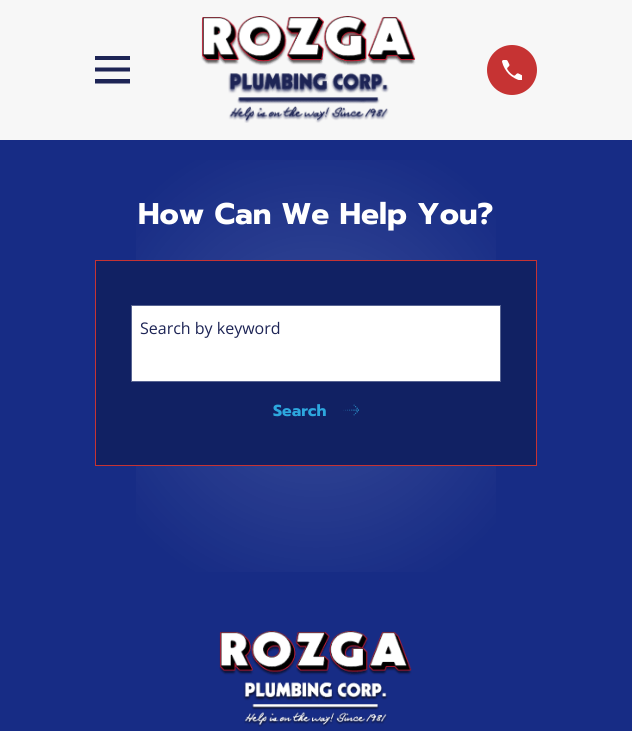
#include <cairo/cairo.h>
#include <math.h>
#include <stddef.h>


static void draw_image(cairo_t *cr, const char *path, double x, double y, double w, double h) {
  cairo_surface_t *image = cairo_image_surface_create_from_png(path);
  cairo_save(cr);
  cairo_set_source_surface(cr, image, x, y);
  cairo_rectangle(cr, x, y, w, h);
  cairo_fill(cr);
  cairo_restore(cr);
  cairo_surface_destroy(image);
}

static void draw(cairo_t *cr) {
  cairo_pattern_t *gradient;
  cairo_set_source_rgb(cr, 247 / 255.0, 247 / 255.0, 247 / 255.0);
  cairo_paint(cr);
  cairo_set_source_rgb(cr, 29 / 255.0, 36 / 255.0, 85 / 255.0);
  cairo_new_path(cr);
  cairo_move_to(cr, 95, 56);
  cairo_line_to(cr, 95, 60);
  cairo_line_to(cr, 130, 60);
  cairo_line_to(cr, 130, 56);
  cairo_close_path(cr);
  cairo_move_to(cr, 95, 67.5);
  cairo_line_to(cr, 95, 71.5);
  cairo_line_to(cr, 130, 71.5);
  cairo_line_to(cr, 130, 67.5);
  cairo_close_path(cr);
  cairo_move_to(cr, 95, 79);
  cairo_line_to(cr, 95, 83.5);
  cairo_line_to(cr, 130, 83.5);
  cairo_line_to(cr, 130, 79);
  cairo_close_path(cr);
  cairo_fill(cr);
  draw_image(cr, "images/1.png", 201, 16, 215, 107);
  cairo_set_source_rgb(cr, 198 / 255.0, 51 / 255.0, 51 / 255.0);
  cairo_arc(cr, 512, 70, 25, 0, 2 * M_PI);
  cairo_fill(cr);
  draw_image(cr, "images/2.png", 502, 60, 20, 20);
  cairo_set_source_rgb(cr, 23 / 255.0, 44 / 255.0, 133 / 255.0);
  cairo_rectangle(cr, 0, 140, 632, 591);
  cairo_fill(cr);
  gradient = cairo_pattern_create_radial(316, 366, 0, 316, 366, 483);
  cairo_pattern_add_color_stop_rgba(gradient, 0, 1, 1, 1, 0.15);
  cairo_pattern_add_color_stop_rgba(gradient, 0.5, 1, 1, 1, 0);
  cairo_set_source(cr, gradient);
  cairo_pattern_destroy(gradient);
  cairo_rectangle(cr, 136, 160, 360, 412);
  cairo_fill(cr);
  cairo_rectangle(cr, 95.5, 260.5, 441, 205);
  cairo_set_source_rgb(cr, 198 / 255.0, 51 / 255.0, 51 / 255.0);
  cairo_set_line_width(cr, 1);
  cairo_stroke(cr);
  cairo_set_source_rgb(cr, 17 / 255.0, 33 / 255.0, 99 / 255.0);
  cairo_rectangle(cr, 96, 261, 440, 204);
  cairo_fill(cr);
  cairo_set_source_rgb(cr, 1, 1, 1);
  cairo_rectangle(cr, 131.5, 305.5, 369, 76);
  cairo_fill_preserve(cr);
  cairo_set_source_rgb(cr, 88 / 255.0, 100 / 255.0, 146 / 255.0);
  cairo_stroke(cr);
  draw_image(cr, "images/3.png", 343, 404, 16, 12);
  draw_image(cr, "images/4.png", 219, 631, 193, 96);
  cairo_select_font_face(cr, "Prompt", CAIRO_FONT_SLANT_NORMAL, CAIRO_FONT_WEIGHT_BOLD);
  cairo_set_font_size(cr, 30);
  cairo_set_source_rgb(cr, 1, 1, 1);
  cairo_move_to(cr, 138, 224);
  cairo_show_text(cr, "How Can We Help You?");
  cairo_select_font_face(cr, "Open Sans", CAIRO_FONT_SLANT_NORMAL, CAIRO_FONT_WEIGHT_NORMAL);
  cairo_set_font_size(cr, 16);
  cairo_set_source_rgb(cr, 29 / 255.0, 36 / 255.0, 85 / 255.0);
  cairo_move_to(cr, 140, 334);
  cairo_show_text(cr, "Search by keyword");
  cairo_select_font_face(cr, "Prompt", CAIRO_FONT_SLANT_NORMAL, CAIRO_FONT_WEIGHT_BOLD);
  cairo_set_source_rgb(cr, 45 / 255.0, 167 / 255.0, 222 / 255.0);
  cairo_move_to(cr, 273, 416);
  cairo_show_text(cr, "Search");
}

int main(void) {
  cairo_surface_t *surface = cairo_image_surface_create(CAIRO_FORMAT_RGB24, 632, 731);
  cairo_t *cr = cairo_create(surface);
  cairo_font_options_t *options = cairo_font_options_create();
  cairo_font_options_set_hint_metrics(options, CAIRO_HINT_METRICS_OFF);
  cairo_font_options_set_hint_style(options, CAIRO_HINT_STYLE_NONE);
  cairo_set_font_options(cr, options);
  cairo_set_miter_limit(cr, 4);
  draw(cr);
  cairo_surface_write_to_png(surface, "out.png");
  cairo_font_options_destroy(options);
  cairo_destroy(cr);
  cairo_surface_destroy(surface);
  return 0;
}
